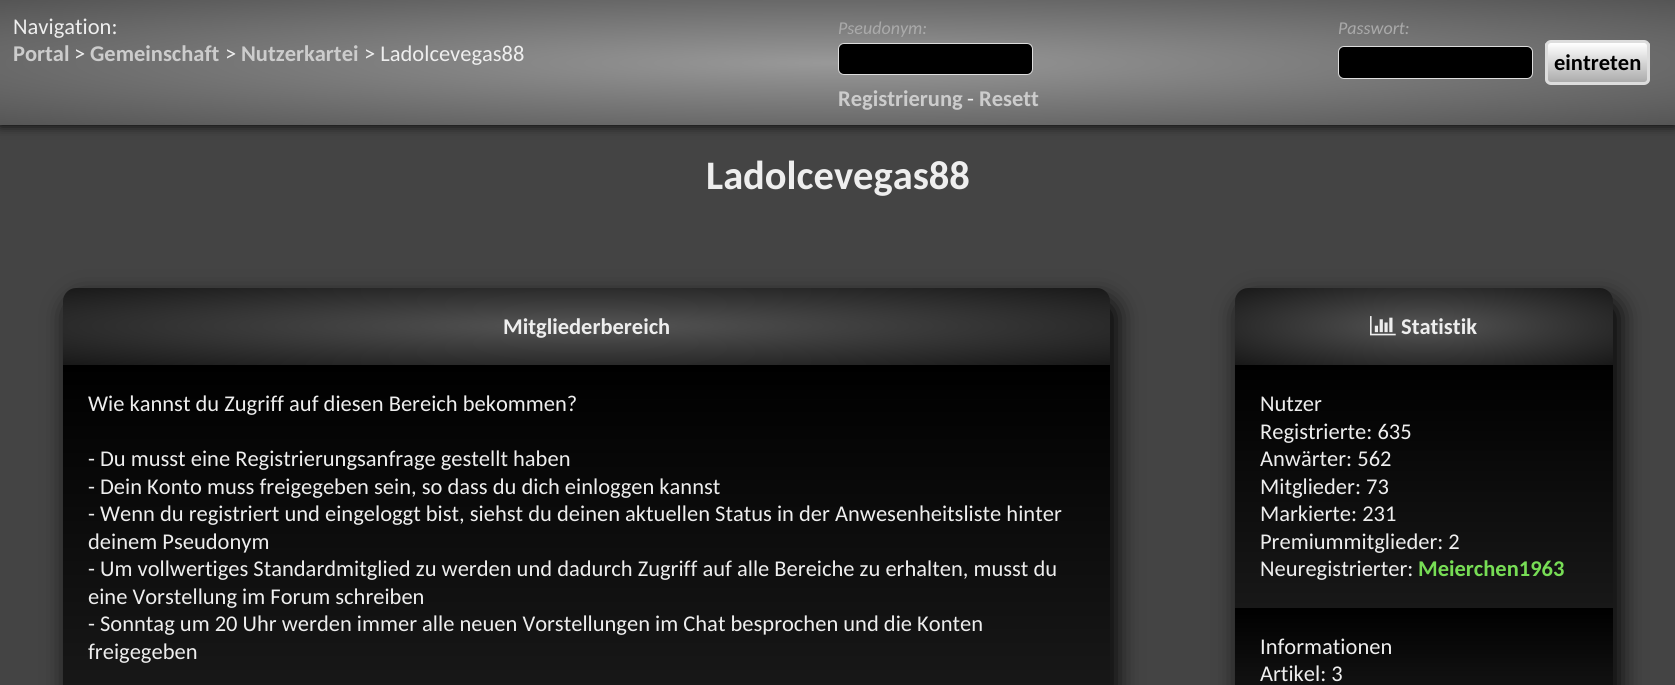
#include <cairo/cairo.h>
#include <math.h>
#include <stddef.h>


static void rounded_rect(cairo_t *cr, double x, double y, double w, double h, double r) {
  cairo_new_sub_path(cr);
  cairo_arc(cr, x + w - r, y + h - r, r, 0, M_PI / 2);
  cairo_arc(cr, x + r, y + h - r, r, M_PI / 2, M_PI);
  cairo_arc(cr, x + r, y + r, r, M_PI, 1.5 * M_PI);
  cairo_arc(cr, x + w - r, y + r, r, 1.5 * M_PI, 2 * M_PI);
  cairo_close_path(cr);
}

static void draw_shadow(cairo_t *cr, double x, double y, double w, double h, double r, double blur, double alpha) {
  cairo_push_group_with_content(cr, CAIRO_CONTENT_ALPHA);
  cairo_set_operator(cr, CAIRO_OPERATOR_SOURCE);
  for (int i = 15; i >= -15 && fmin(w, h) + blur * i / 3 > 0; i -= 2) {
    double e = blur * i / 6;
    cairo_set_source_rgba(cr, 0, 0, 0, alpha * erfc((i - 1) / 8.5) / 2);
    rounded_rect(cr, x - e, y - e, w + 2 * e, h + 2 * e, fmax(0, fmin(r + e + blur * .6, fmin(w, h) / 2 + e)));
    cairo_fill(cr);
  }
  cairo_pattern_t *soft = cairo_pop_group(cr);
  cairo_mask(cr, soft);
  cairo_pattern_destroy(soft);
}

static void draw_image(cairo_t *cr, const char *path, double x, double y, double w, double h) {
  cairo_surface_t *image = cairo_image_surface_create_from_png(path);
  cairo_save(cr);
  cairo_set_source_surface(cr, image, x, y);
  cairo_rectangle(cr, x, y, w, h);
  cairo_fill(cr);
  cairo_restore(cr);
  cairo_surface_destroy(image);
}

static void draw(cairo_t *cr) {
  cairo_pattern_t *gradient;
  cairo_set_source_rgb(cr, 68 / 255.0, 68 / 255.0, 68 / 255.0);
  cairo_paint(cr);
  cairo_set_source_rgb(cr, 0, 0, 0);
  draw_shadow(cr, 0, 0, 1675, 125, 0, 6, 1);
  gradient = cairo_pattern_create_radial(0, 0, 0, 0, 0, 1);
  cairo_pattern_set_matrix(gradient, &(cairo_matrix_t){1.0 / 1184, 0, 0, 1.0 / 88, -1.0 * 838 / 1184, -1.0 * 63 / 88});
  cairo_pattern_add_color_stop_rgba(gradient, 0, 153 / 255.0, 153 / 255.0, 153 / 255.0, 1);
  cairo_pattern_add_color_stop_rgba(gradient, 1, 85 / 255.0, 85 / 255.0, 85 / 255.0, 1);
  cairo_set_source(cr, gradient);
  cairo_pattern_destroy(gradient);
  cairo_rectangle(cr, 0, 0, 1675, 125);
  cairo_fill(cr);
  cairo_set_source_rgb(cr, 0, 0, 0);
  rounded_rect(cr, 838.5, 43.5, 194, 31, 5.5);
  cairo_fill_preserve(cr);
  cairo_set_source_rgb(cr, 221 / 255.0, 221 / 255.0, 221 / 255.0);
  cairo_set_line_width(cr, 1);
  cairo_stroke(cr);
  cairo_set_source_rgb(cr, 0, 0, 0);
  rounded_rect(cr, 1338.5, 46.5, 194, 32, 5.5);
  cairo_fill_preserve(cr);
  cairo_set_source_rgb(cr, 221 / 255.0, 221 / 255.0, 221 / 255.0);
  cairo_stroke(cr);
  cairo_save(cr);
  rounded_rect(cr, 1545, 40, 105, 45, 6);
  cairo_clip(cr);
  gradient = cairo_pattern_create_linear(1598, 83, 1598, 43);
  cairo_pattern_add_color_stop_rgba(gradient, 0, 170 / 255.0, 170 / 255.0, 170 / 255.0, 1);
  cairo_pattern_add_color_stop_rgba(gradient, 1, 1, 1, 1, 1);
  cairo_set_source(cr, gradient);
  cairo_pattern_destroy(gradient);
  cairo_rectangle(cr, 1545, 43, 105, 40);
  cairo_fill(cr);
  cairo_restore(cr);
  rounded_rect(cr, 1546.5, 41.5, 102, 42, 4.5);
  cairo_set_line_width(cr, 3);
  cairo_stroke(cr);
  cairo_set_source_rgb(cr, 0, 0, 0);
  draw_shadow(cr, 69, 300, 1047, 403, 13, 12.5, 1);
  gradient = cairo_pattern_create_radial(0, 0, 0, 0, 0, 1);
  cairo_pattern_set_matrix(gradient, &(cairo_matrix_t){1.0 / 741, 0, 0, 1.0 / 55, -1.0 * 586 / 741, -1.0 * 326 / 55});
  cairo_pattern_add_color_stop_rgba(gradient, 0, 85 / 255.0, 85 / 255.0, 85 / 255.0, 1);
  cairo_pattern_add_color_stop_rgba(gradient, 1, 24 / 255.0, 24 / 255.0, 24 / 255.0, 1);
  cairo_set_source(cr, gradient);
  cairo_pattern_destroy(gradient);
  cairo_new_path(cr);
  cairo_move_to(cr, 76, 288);
  cairo_line_to(cr, 1097, 288);
  cairo_curve_to(cr, 1104, 288, 1110, 294, 1110, 301);
  cairo_line_to(cr, 1110, 365);
  cairo_line_to(cr, 63, 365);
  cairo_line_to(cr, 63, 301);
  cairo_curve_to(cr, 63, 294, 69, 288, 76, 288);
  cairo_close_path(cr);
  cairo_fill(cr);
  gradient = cairo_pattern_create_linear(586, 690, 586, 365);
  cairo_pattern_add_color_stop_rgba(gradient, 0, 24 / 255.0, 24 / 255.0, 24 / 255.0, 1);
  cairo_pattern_add_color_stop_rgba(gradient, 1, 0, 0, 0, 1);
  cairo_set_source(cr, gradient);
  cairo_pattern_destroy(gradient);
  cairo_rectangle(cr, 63, 365, 1047, 320);
  cairo_fill(cr);
  cairo_set_source_rgb(cr, 0, 0, 0);
  draw_shadow(cr, 1241, 300, 378, 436, 13, 12.5, 1);
  gradient = cairo_pattern_create_radial(0, 0, 0, 0, 0, 1);
  cairo_pattern_set_matrix(gradient, &(cairo_matrix_t){1.0 / 267, 0, 0, 1.0 / 55, -1.0 * 1424 / 267, -1.0 * 326 / 55});
  cairo_pattern_add_color_stop_rgba(gradient, 0, 85 / 255.0, 85 / 255.0, 85 / 255.0, 1);
  cairo_pattern_add_color_stop_rgba(gradient, 1, 24 / 255.0, 24 / 255.0, 24 / 255.0, 1);
  cairo_set_source(cr, gradient);
  cairo_pattern_destroy(gradient);
  cairo_new_path(cr);
  cairo_move_to(cr, 1248, 288);
  cairo_line_to(cr, 1600, 288);
  cairo_curve_to(cr, 1607, 288, 1613, 294, 1613, 301);
  cairo_line_to(cr, 1613, 365);
  cairo_line_to(cr, 1235, 365);
  cairo_line_to(cr, 1235, 301);
  cairo_curve_to(cr, 1235, 294, 1241, 288, 1248, 288);
  cairo_close_path(cr);
  cairo_fill(cr);
  draw_image(cr, "images/1.png", 1370, 316, 26, 20);
  gradient = cairo_pattern_create_linear(1424, 608, 1424, 365);
  cairo_pattern_add_color_stop_rgba(gradient, 0, 24 / 255.0, 24 / 255.0, 24 / 255.0, 1);
  cairo_pattern_add_color_stop_rgba(gradient, 1, 0, 0, 0, 1);
  cairo_set_source(cr, gradient);
  cairo_pattern_destroy(gradient);
  cairo_rectangle(cr, 1235, 365, 378, 243);
  cairo_fill(cr);
  gradient = cairo_pattern_create_linear(1424, 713, 1424, 608);
  cairo_pattern_add_color_stop_rgba(gradient, 0, 24 / 255.0, 24 / 255.0, 24 / 255.0, 1);
  cairo_pattern_add_color_stop_rgba(gradient, 1, 0, 0, 0, 1);
  cairo_set_source(cr, gradient);
  cairo_pattern_destroy(gradient);
  cairo_rectangle(cr, 1235, 608, 378, 77);
  cairo_fill(cr);
  cairo_select_font_face(cr, "Carlito", CAIRO_FONT_SLANT_NORMAL, CAIRO_FONT_WEIGHT_NORMAL);
  cairo_set_font_size(cr, 22.5);
  cairo_set_source_rgb(cr, 238 / 255.0, 238 / 255.0, 238 / 255.0);
  cairo_move_to(cr, 13, 34);
  cairo_show_text(cr, "Navigation:");
  cairo_select_font_face(cr, "Carlito", CAIRO_FONT_SLANT_NORMAL, CAIRO_FONT_WEIGHT_BOLD);
  cairo_set_source_rgb(cr, 204 / 255.0, 204 / 255.0, 204 / 255.0);
  cairo_move_to(cr, 13, 61);
  cairo_show_text(cr, "Portal");
  cairo_select_font_face(cr, "Carlito", CAIRO_FONT_SLANT_NORMAL, CAIRO_FONT_WEIGHT_NORMAL);
  cairo_set_source_rgb(cr, 238 / 255.0, 238 / 255.0, 238 / 255.0);
  cairo_move_to(cr, 74, 61);
  cairo_show_text(cr, ">");
  cairo_select_font_face(cr, "Carlito", CAIRO_FONT_SLANT_NORMAL, CAIRO_FONT_WEIGHT_BOLD);
  cairo_set_source_rgb(cr, 204 / 255.0, 204 / 255.0, 204 / 255.0);
  cairo_move_to(cr, 90, 61);
  cairo_show_text(cr, "Gemeinschaft");
  cairo_select_font_face(cr, "Carlito", CAIRO_FONT_SLANT_NORMAL, CAIRO_FONT_WEIGHT_NORMAL);
  cairo_set_source_rgb(cr, 238 / 255.0, 238 / 255.0, 238 / 255.0);
  cairo_move_to(cr, 225, 61);
  cairo_show_text(cr, ">");
  cairo_select_font_face(cr, "Carlito", CAIRO_FONT_SLANT_NORMAL, CAIRO_FONT_WEIGHT_BOLD);
  cairo_set_source_rgb(cr, 204 / 255.0, 204 / 255.0, 204 / 255.0);
  cairo_move_to(cr, 241, 61);
  cairo_show_text(cr, "Nutzerkartei");
  cairo_select_font_face(cr, "Carlito", CAIRO_FONT_SLANT_NORMAL, CAIRO_FONT_WEIGHT_NORMAL);
  cairo_set_source_rgb(cr, 238 / 255.0, 238 / 255.0, 238 / 255.0);
  cairo_move_to(cr, 364, 61);
  cairo_show_text(cr, "> Ladolcevegas88");
  cairo_select_font_face(cr, "Carlito", CAIRO_FONT_SLANT_ITALIC, CAIRO_FONT_WEIGHT_NORMAL);
  cairo_set_font_size(cr, 18);
  cairo_set_source_rgb(cr, 170 / 255.0, 170 / 255.0, 170 / 255.0);
  cairo_move_to(cr, 838, 34);
  cairo_show_text(cr, "Pseudonym:");
  cairo_move_to(cr, 1338, 34);
  cairo_show_text(cr, "Passwort:");
  cairo_select_font_face(cr, "Carlito", CAIRO_FONT_SLANT_NORMAL, CAIRO_FONT_WEIGHT_BOLD);
  cairo_set_font_size(cr, 22.5);
  cairo_set_source_rgb(cr, 0, 0, 0);
  cairo_move_to(cr, 1554, 70);
  cairo_show_text(cr, "eintreten");
  cairo_set_source_rgb(cr, 204 / 255.0, 204 / 255.0, 204 / 255.0);
  cairo_move_to(cr, 838, 106);
  cairo_show_text(cr, "Registrierung");
  cairo_select_font_face(cr, "Carlito", CAIRO_FONT_SLANT_NORMAL, CAIRO_FONT_WEIGHT_NORMAL);
  cairo_set_source_rgb(cr, 238 / 255.0, 238 / 255.0, 238 / 255.0);
  cairo_move_to(cr, 967, 106);
  cairo_show_text(cr, "-");
  cairo_select_font_face(cr, "Carlito", CAIRO_FONT_SLANT_NORMAL, CAIRO_FONT_WEIGHT_BOLD);
  cairo_set_source_rgb(cr, 204 / 255.0, 204 / 255.0, 204 / 255.0);
  cairo_move_to(cr, 979, 106);
  cairo_show_text(cr, "Resett");
  cairo_set_font_size(cr, 40.5);
  cairo_set_source_rgb(cr, 238 / 255.0, 238 / 255.0, 238 / 255.0);
  cairo_move_to(cr, 706, 189);
  cairo_show_text(cr, "Ladolcevegas88");
  cairo_set_font_size(cr, 22.5);
  cairo_move_to(cr, 503, 334);
  cairo_show_text(cr, "Mitgliederbereich");
  cairo_select_font_face(cr, "Carlito", CAIRO_FONT_SLANT_NORMAL, CAIRO_FONT_WEIGHT_NORMAL);
  cairo_move_to(cr, 88, 411);
  cairo_show_text(cr, "Wie kannst du Zugriff auf diesen Bereich bekommen?");
  cairo_move_to(cr, 88, 466);
  cairo_show_text(cr, "- Du musst eine Registrierungsanfrage gestellt haben");
  cairo_move_to(cr, 88, 494);
  cairo_show_text(cr, "- Dein Konto muss freigegeben sein, so dass du dich einloggen kannst");
  cairo_move_to(cr, 88, 521);
  cairo_show_text(cr, "- Wenn du registriert und eingeloggt bist, siehst du deinen aktuellen Status in der Anwesenheitsliste hinter");
  cairo_move_to(cr, 88, 549);
  cairo_show_text(cr, "deinem Pseudonym");
  cairo_move_to(cr, 88, 576);
  cairo_show_text(cr, "- Um vollwertiges Standardmitglied zu werden und dadurch Zugriff auf alle Bereiche zu erhalten, musst du");
  cairo_move_to(cr, 88, 604);
  cairo_show_text(cr, "eine Vorstellung im Forum schreiben");
  cairo_move_to(cr, 88, 631);
  cairo_show_text(cr, "- Sonntag um 20 Uhr werden immer alle neuen Vorstellungen im Chat besprochen und die Konten");
  cairo_move_to(cr, 88, 659);
  cairo_show_text(cr, "freigegeben");
  cairo_select_font_face(cr, "Carlito", CAIRO_FONT_SLANT_NORMAL, CAIRO_FONT_WEIGHT_BOLD);
  cairo_move_to(cr, 1401, 334);
  cairo_show_text(cr, "Statistik");
  cairo_select_font_face(cr, "Carlito", CAIRO_FONT_SLANT_NORMAL, CAIRO_FONT_WEIGHT_NORMAL);
  cairo_move_to(cr, 1260, 411);
  cairo_show_text(cr, "Nutzer");
  cairo_move_to(cr, 1260, 439);
  cairo_show_text(cr, "Registrierte: 635");
  cairo_move_to(cr, 1260, 466);
  cairo_show_text(cr, "Anwärter: 562");
  cairo_move_to(cr, 1260, 494);
  cairo_show_text(cr, "Mitglieder: 73");
  cairo_move_to(cr, 1260, 521);
  cairo_show_text(cr, "Markierte: 231");
  cairo_move_to(cr, 1260, 549);
  cairo_show_text(cr, "Premiummitglieder: 2");
  cairo_move_to(cr, 1260, 576);
  cairo_show_text(cr, "Neuregistrierter:");
  cairo_select_font_face(cr, "Carlito", CAIRO_FONT_SLANT_NORMAL, CAIRO_FONT_WEIGHT_BOLD);
  cairo_set_source_rgb(cr, 119 / 255.0, 221 / 255.0, 85 / 255.0);
  cairo_move_to(cr, 1418, 576);
  cairo_show_text(cr, "Meierchen1963");
  cairo_select_font_face(cr, "Carlito", CAIRO_FONT_SLANT_NORMAL, CAIRO_FONT_WEIGHT_NORMAL);
  cairo_set_source_rgb(cr, 238 / 255.0, 238 / 255.0, 238 / 255.0);
  cairo_move_to(cr, 1260, 654);
  cairo_show_text(cr, "Informationen");
  cairo_move_to(cr, 1260, 681);
  cairo_show_text(cr, "Artikel: 3");
}

int main(void) {
  cairo_surface_t *surface = cairo_image_surface_create(CAIRO_FORMAT_RGB24, 1675, 685);
  cairo_t *cr = cairo_create(surface);
  cairo_font_options_t *options = cairo_font_options_create();
  cairo_font_options_set_hint_metrics(options, CAIRO_HINT_METRICS_OFF);
  cairo_font_options_set_hint_style(options, CAIRO_HINT_STYLE_NONE);
  cairo_set_font_options(cr, options);
  cairo_set_miter_limit(cr, 4);
  draw(cr);
  cairo_surface_write_to_png(surface, "out.png");
  cairo_font_options_destroy(options);
  cairo_destroy(cr);
  cairo_surface_destroy(surface);
  return 0;
}
